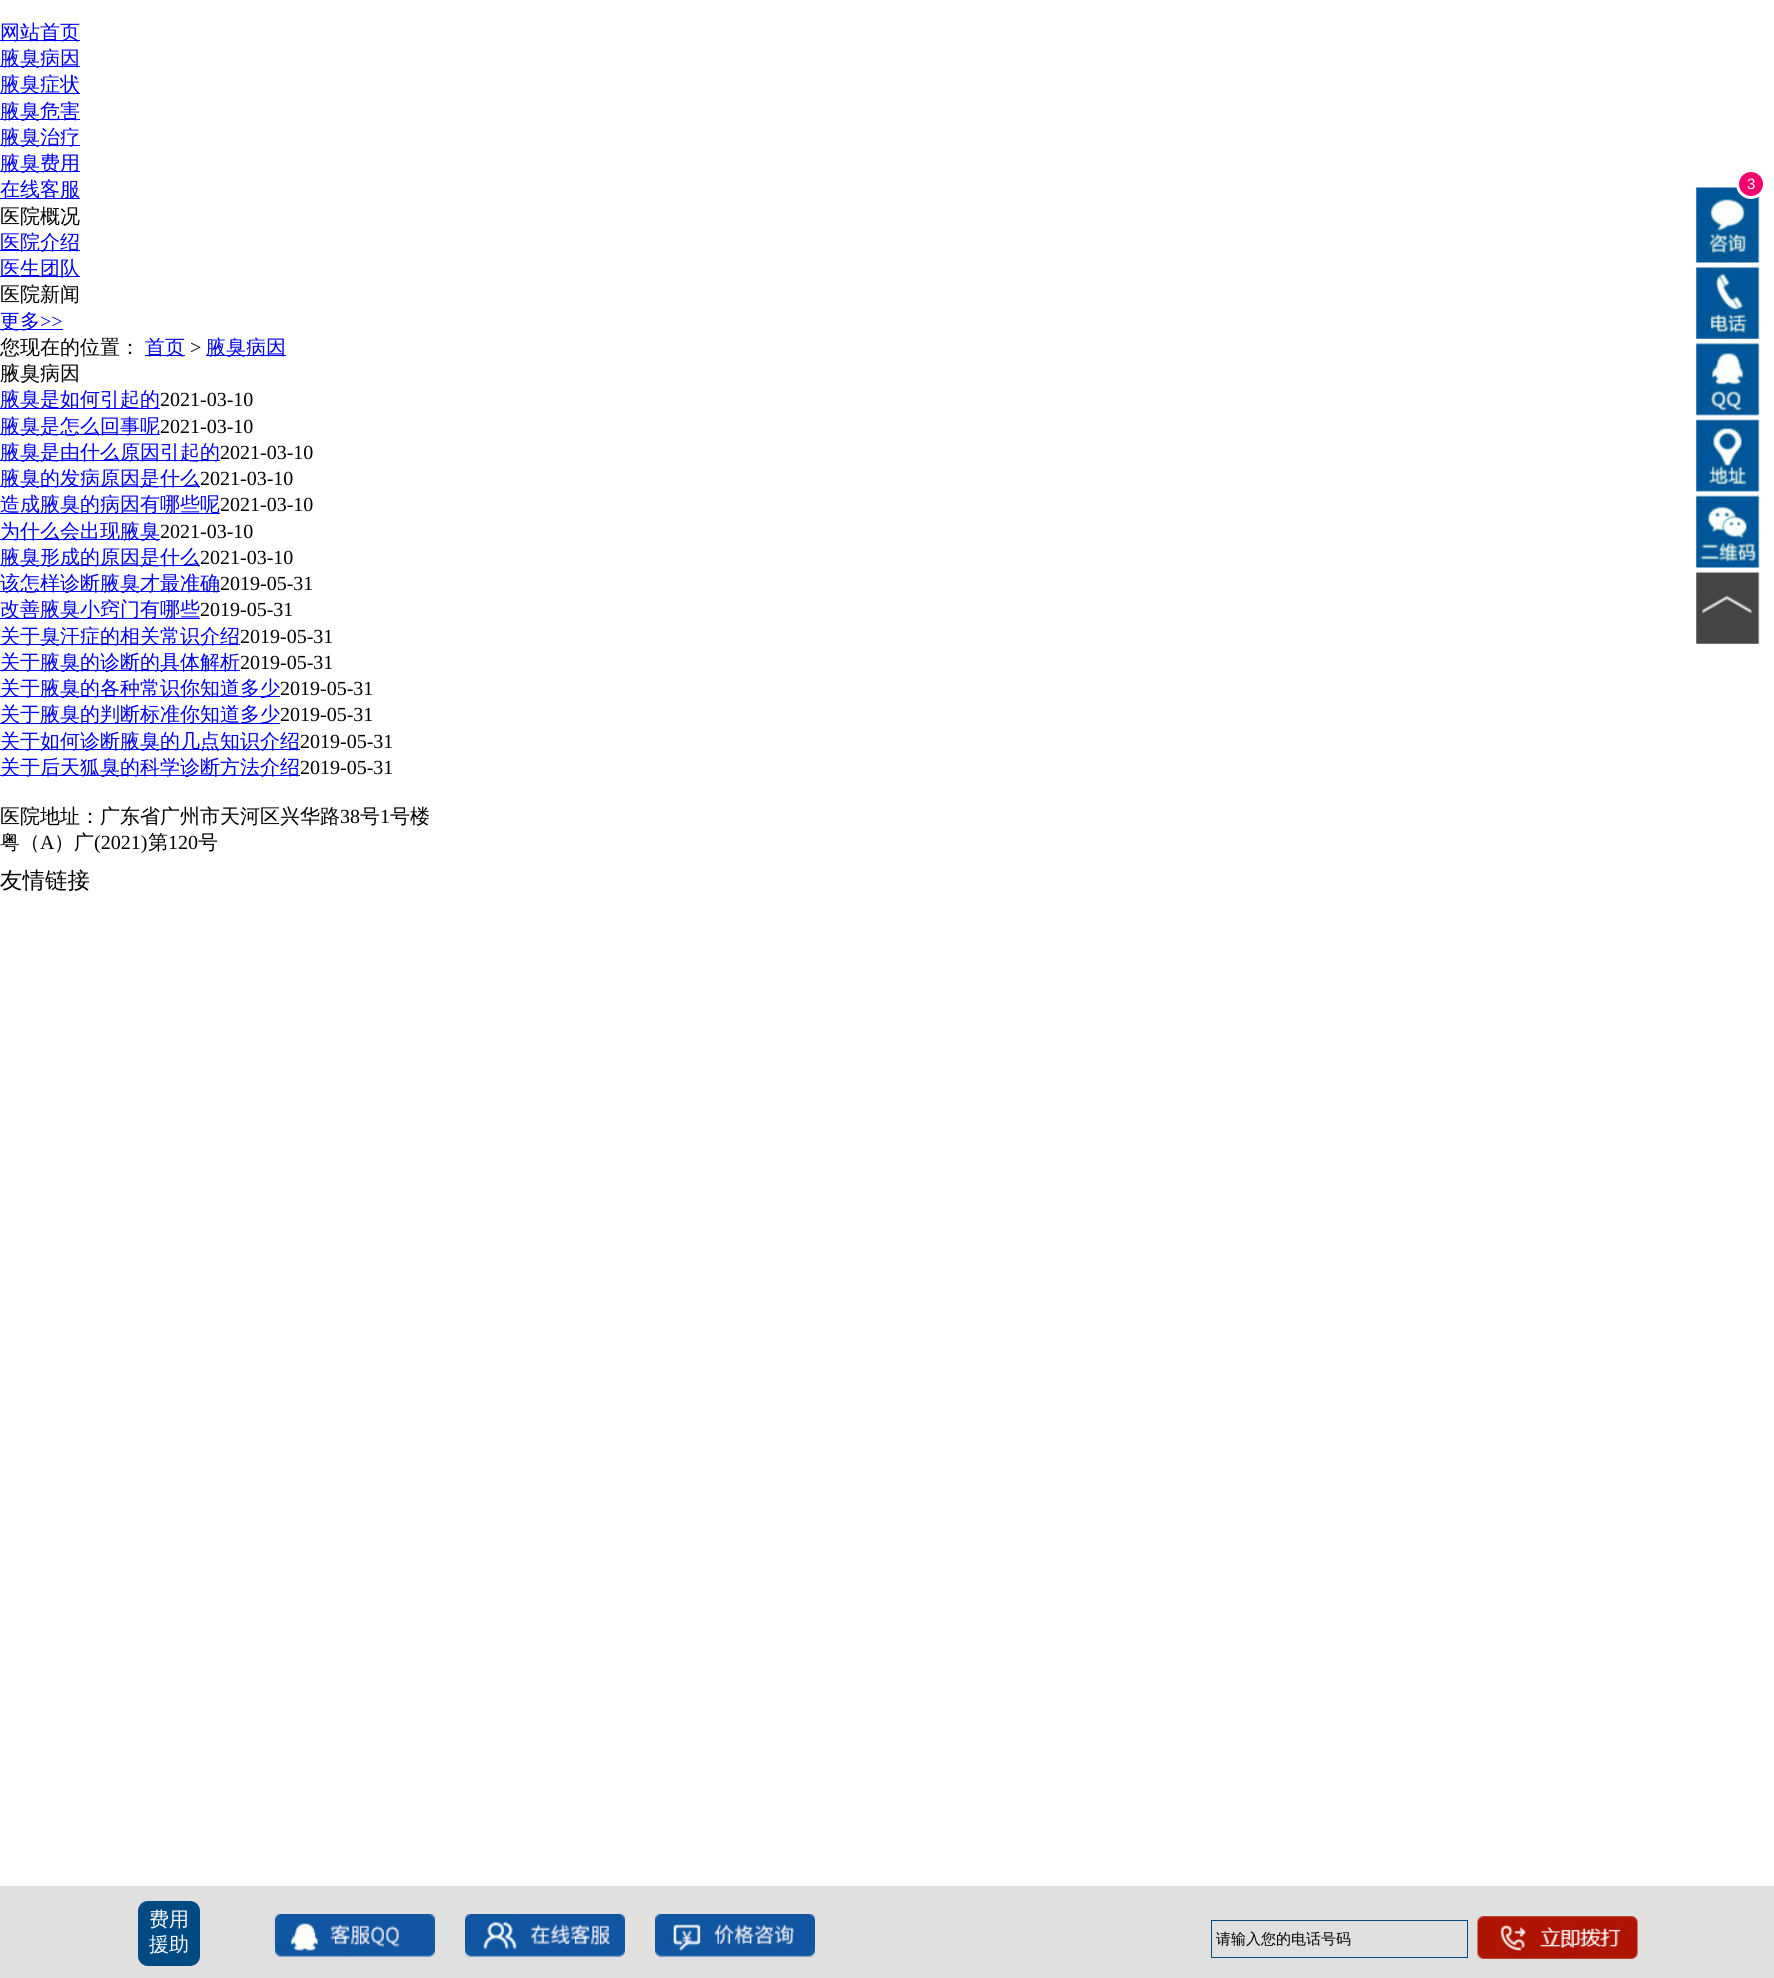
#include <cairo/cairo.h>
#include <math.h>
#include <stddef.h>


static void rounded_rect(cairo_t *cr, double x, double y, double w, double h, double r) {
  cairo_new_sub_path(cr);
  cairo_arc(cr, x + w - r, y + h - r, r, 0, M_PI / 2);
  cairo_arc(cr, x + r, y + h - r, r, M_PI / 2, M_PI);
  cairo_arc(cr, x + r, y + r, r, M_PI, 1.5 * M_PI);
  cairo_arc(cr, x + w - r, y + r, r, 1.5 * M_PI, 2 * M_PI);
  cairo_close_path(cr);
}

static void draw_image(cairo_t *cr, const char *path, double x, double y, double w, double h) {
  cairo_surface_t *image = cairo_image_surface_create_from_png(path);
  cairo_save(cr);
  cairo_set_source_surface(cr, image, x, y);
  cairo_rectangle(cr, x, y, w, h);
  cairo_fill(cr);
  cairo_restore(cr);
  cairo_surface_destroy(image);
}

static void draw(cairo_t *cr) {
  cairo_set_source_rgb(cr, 1, 1, 1);
  cairo_paint(cr);
  cairo_set_source_rgb(cr, 0, 0, 238 / 255.0);
  cairo_rectangle(cr, 0, 40, 80, 1);
  cairo_fill(cr);
  cairo_rectangle(cr, 0, 66, 80, 1);
  cairo_fill(cr);
  cairo_rectangle(cr, 0, 93, 80, 1);
  cairo_fill(cr);
  cairo_rectangle(cr, 0, 119, 80, 1);
  cairo_fill(cr);
  cairo_rectangle(cr, 0, 145, 80, 1);
  cairo_fill(cr);
  cairo_rectangle(cr, 0, 171, 80, 1);
  cairo_fill(cr);
  cairo_rectangle(cr, 0, 198, 80, 1);
  cairo_fill(cr);
  draw_image(cr, "images/1.png", 1696, 187, 64, 76);
  cairo_set_source_rgb(cr, 247 / 255.0, 1 / 255.0, 111 / 255.0);
  cairo_arc(cr, 1751, 184, 13.5, 0, 2 * M_PI);
  cairo_fill_preserve(cr);
  cairo_set_source_rgb(cr, 1, 1, 1);
  cairo_set_line_width(cr, 3);
  cairo_stroke(cr);
  draw_image(cr, "images/2.png", 1696, 264, 64, 75);
  draw_image(cr, "images/3.png", 1696, 340, 64, 76);
  draw_image(cr, "images/4.png", 1696, 415, 64, 77);
  draw_image(cr, "images/5.png", 1696, 492, 64, 76);
  draw_image(cr, "images/6.png", 1696, 571, 64, 73);
  cairo_set_source_rgb(cr, 0, 0, 238 / 255.0);
  cairo_rectangle(cr, 0, 250, 80, 1);
  cairo_fill(cr);
  cairo_rectangle(cr, 0, 276, 80, 1);
  cairo_fill(cr);
  cairo_rectangle(cr, 0, 329, 63, 1);
  cairo_fill(cr);
  cairo_rectangle(cr, 145, 355, 40, 1);
  cairo_fill(cr);
  cairo_rectangle(cr, 206, 355, 80, 1);
  cairo_fill(cr);
  cairo_rectangle(cr, 0, 408, 160, 1);
  cairo_fill(cr);
  cairo_rectangle(cr, 0, 434, 160, 1);
  cairo_fill(cr);
  cairo_rectangle(cr, 0, 460, 220, 1);
  cairo_fill(cr);
  cairo_rectangle(cr, 0, 486, 200, 1);
  cairo_fill(cr);
  cairo_rectangle(cr, 0, 513, 220, 1);
  cairo_fill(cr);
  cairo_rectangle(cr, 0, 539, 160, 1);
  cairo_fill(cr);
  cairo_rectangle(cr, 0, 565, 200, 1);
  cairo_fill(cr);
  cairo_rectangle(cr, 0, 591, 220, 1);
  cairo_fill(cr);
  cairo_rectangle(cr, 0, 618, 200, 1);
  cairo_fill(cr);
  cairo_rectangle(cr, 0, 644, 240, 1);
  cairo_fill(cr);
  cairo_rectangle(cr, 0, 670, 240, 1);
  cairo_fill(cr);
  cairo_rectangle(cr, 0, 696, 280, 1);
  cairo_fill(cr);
  cairo_rectangle(cr, 0, 723, 280, 1);
  cairo_fill(cr);
  cairo_rectangle(cr, 0, 749, 300, 1);
  cairo_fill(cr);
  cairo_rectangle(cr, 0, 775, 300, 1);
  cairo_fill(cr);
  cairo_set_source_rgb(cr, 225 / 255.0, 224 / 255.0, 225 / 255.0);
  cairo_rectangle(cr, 0, 1886, 1774, 92);
  cairo_fill(cr);
  cairo_set_source_rgb(cr, 0, 74 / 255.0, 131 / 255.0);
  rounded_rect(cr, 138, 1901, 62, 65, 10);
  cairo_fill(cr);
  draw_image(cr, "images/7.png", 275, 1914, 160, 43);
  draw_image(cr, "images/8.png", 465, 1914, 160, 43);
  draw_image(cr, "images/9.png", 655, 1914, 160, 43);
  cairo_rectangle(cr, 1211.5, 1920.5, 256, 37);
  cairo_set_line_width(cr, 1);
  cairo_stroke(cr);
  draw_image(cr, "images/10.png", 1477, 1916, 161, 43);
  cairo_select_font_face(cr, "WenQuanYi Zen Hei Medium", CAIRO_FONT_SLANT_NORMAL, CAIRO_FONT_WEIGHT_NORMAL);
  cairo_set_font_size(cr, 20);
  cairo_set_source_rgb(cr, 0, 0, 238 / 255.0);
  cairo_move_to(cr, 0, 39);
  cairo_show_text(cr, "网站首页");
  cairo_move_to(cr, 0, 65);
  cairo_show_text(cr, "腋臭病因");
  cairo_move_to(cr, 0, 91);
  cairo_show_text(cr, "腋臭症状");
  cairo_move_to(cr, 0, 118);
  cairo_show_text(cr, "腋臭危害");
  cairo_move_to(cr, 0, 144);
  cairo_show_text(cr, "腋臭治疗");
  cairo_move_to(cr, 0, 170);
  cairo_show_text(cr, "腋臭费用");
  cairo_move_to(cr, 0, 196);
  cairo_show_text(cr, "在线客服");
  cairo_select_font_face(cr, "Liberation Sans", CAIRO_FONT_SLANT_NORMAL, CAIRO_FONT_WEIGHT_NORMAL);
  cairo_set_font_size(cr, 15);
  cairo_set_source_rgb(cr, 1, 1, 1);
  cairo_move_to(cr, 1747, 189);
  cairo_show_text(cr, "3");
  cairo_select_font_face(cr, "WenQuanYi Zen Hei Medium", CAIRO_FONT_SLANT_NORMAL, CAIRO_FONT_WEIGHT_NORMAL);
  cairo_set_font_size(cr, 20);
  cairo_set_source_rgb(cr, 0, 0, 0);
  cairo_move_to(cr, 0, 223);
  cairo_show_text(cr, "医院概况");
  cairo_set_source_rgb(cr, 0, 0, 238 / 255.0);
  cairo_move_to(cr, 0, 249);
  cairo_show_text(cr, "医院介绍");
  cairo_move_to(cr, 0, 275);
  cairo_show_text(cr, "医生团队");
  cairo_set_source_rgb(cr, 0, 0, 0);
  cairo_move_to(cr, 0, 301);
  cairo_show_text(cr, "医院新闻");
  cairo_set_source_rgb(cr, 0, 0, 238 / 255.0);
  cairo_move_to(cr, 0, 328);
  cairo_show_text(cr, "更多");
  cairo_select_font_face(cr, "Liberation Serif", CAIRO_FONT_SLANT_NORMAL, CAIRO_FONT_WEIGHT_NORMAL);
  cairo_move_to(cr, 40, 328);
  cairo_show_text(cr, ">>");
  cairo_select_font_face(cr, "WenQuanYi Zen Hei Medium", CAIRO_FONT_SLANT_NORMAL, CAIRO_FONT_WEIGHT_NORMAL);
  cairo_set_source_rgb(cr, 0, 0, 0);
  cairo_move_to(cr, 0, 354);
  cairo_show_text(cr, "您现在的位置：");
  cairo_set_source_rgb(cr, 0, 0, 238 / 255.0);
  cairo_move_to(cr, 145, 354);
  cairo_show_text(cr, "首页");
  cairo_select_font_face(cr, "Liberation Serif", CAIRO_FONT_SLANT_NORMAL, CAIRO_FONT_WEIGHT_NORMAL);
  cairo_set_source_rgb(cr, 0, 0, 0);
  cairo_move_to(cr, 190, 354);
  cairo_show_text(cr, ">");
  cairo_select_font_face(cr, "WenQuanYi Zen Hei Medium", CAIRO_FONT_SLANT_NORMAL, CAIRO_FONT_WEIGHT_NORMAL);
  cairo_set_source_rgb(cr, 0, 0, 238 / 255.0);
  cairo_move_to(cr, 206, 354);
  cairo_show_text(cr, "腋臭病因");
  cairo_set_source_rgb(cr, 0, 0, 0);
  cairo_move_to(cr, 0, 380);
  cairo_show_text(cr, "腋臭病因");
  cairo_set_source_rgb(cr, 0, 0, 238 / 255.0);
  cairo_move_to(cr, 0, 406);
  cairo_show_text(cr, "腋臭是如何引起的");
  cairo_select_font_face(cr, "Liberation Serif", CAIRO_FONT_SLANT_NORMAL, CAIRO_FONT_WEIGHT_NORMAL);
  cairo_set_source_rgb(cr, 0, 0, 0);
  cairo_move_to(cr, 160, 406);
  cairo_show_text(cr, "2021-03-10");
  cairo_select_font_face(cr, "WenQuanYi Zen Hei Medium", CAIRO_FONT_SLANT_NORMAL, CAIRO_FONT_WEIGHT_NORMAL);
  cairo_set_source_rgb(cr, 0, 0, 238 / 255.0);
  cairo_move_to(cr, 0, 433);
  cairo_show_text(cr, "腋臭是怎么回事呢");
  cairo_select_font_face(cr, "Liberation Serif", CAIRO_FONT_SLANT_NORMAL, CAIRO_FONT_WEIGHT_NORMAL);
  cairo_set_source_rgb(cr, 0, 0, 0);
  cairo_move_to(cr, 160, 433);
  cairo_show_text(cr, "2021-03-10");
  cairo_select_font_face(cr, "WenQuanYi Zen Hei Medium", CAIRO_FONT_SLANT_NORMAL, CAIRO_FONT_WEIGHT_NORMAL);
  cairo_set_source_rgb(cr, 0, 0, 238 / 255.0);
  cairo_move_to(cr, 0, 459);
  cairo_show_text(cr, "腋臭是由什么原因引起的");
  cairo_select_font_face(cr, "Liberation Serif", CAIRO_FONT_SLANT_NORMAL, CAIRO_FONT_WEIGHT_NORMAL);
  cairo_set_source_rgb(cr, 0, 0, 0);
  cairo_move_to(cr, 220, 459);
  cairo_show_text(cr, "2021-03-10");
  cairo_select_font_face(cr, "WenQuanYi Zen Hei Medium", CAIRO_FONT_SLANT_NORMAL, CAIRO_FONT_WEIGHT_NORMAL);
  cairo_set_source_rgb(cr, 0, 0, 238 / 255.0);
  cairo_move_to(cr, 0, 485);
  cairo_show_text(cr, "腋臭的发病原因是什么");
  cairo_select_font_face(cr, "Liberation Serif", CAIRO_FONT_SLANT_NORMAL, CAIRO_FONT_WEIGHT_NORMAL);
  cairo_set_source_rgb(cr, 0, 0, 0);
  cairo_move_to(cr, 200, 485);
  cairo_show_text(cr, "2021-03-10");
  cairo_select_font_face(cr, "WenQuanYi Zen Hei Medium", CAIRO_FONT_SLANT_NORMAL, CAIRO_FONT_WEIGHT_NORMAL);
  cairo_set_source_rgb(cr, 0, 0, 238 / 255.0);
  cairo_move_to(cr, 0, 511);
  cairo_show_text(cr, "造成腋臭的病因有哪些呢");
  cairo_select_font_face(cr, "Liberation Serif", CAIRO_FONT_SLANT_NORMAL, CAIRO_FONT_WEIGHT_NORMAL);
  cairo_set_source_rgb(cr, 0, 0, 0);
  cairo_move_to(cr, 220, 511);
  cairo_show_text(cr, "2021-03-10");
  cairo_select_font_face(cr, "WenQuanYi Zen Hei Medium", CAIRO_FONT_SLANT_NORMAL, CAIRO_FONT_WEIGHT_NORMAL);
  cairo_set_source_rgb(cr, 0, 0, 238 / 255.0);
  cairo_move_to(cr, 0, 538);
  cairo_show_text(cr, "为什么会出现腋臭");
  cairo_select_font_face(cr, "Liberation Serif", CAIRO_FONT_SLANT_NORMAL, CAIRO_FONT_WEIGHT_NORMAL);
  cairo_set_source_rgb(cr, 0, 0, 0);
  cairo_move_to(cr, 160, 538);
  cairo_show_text(cr, "2021-03-10");
  cairo_select_font_face(cr, "WenQuanYi Zen Hei Medium", CAIRO_FONT_SLANT_NORMAL, CAIRO_FONT_WEIGHT_NORMAL);
  cairo_set_source_rgb(cr, 0, 0, 238 / 255.0);
  cairo_move_to(cr, 0, 564);
  cairo_show_text(cr, "腋臭形成的原因是什么");
  cairo_select_font_face(cr, "Liberation Serif", CAIRO_FONT_SLANT_NORMAL, CAIRO_FONT_WEIGHT_NORMAL);
  cairo_set_source_rgb(cr, 0, 0, 0);
  cairo_move_to(cr, 200, 564);
  cairo_show_text(cr, "2021-03-10");
  cairo_select_font_face(cr, "WenQuanYi Zen Hei Medium", CAIRO_FONT_SLANT_NORMAL, CAIRO_FONT_WEIGHT_NORMAL);
  cairo_set_source_rgb(cr, 0, 0, 238 / 255.0);
  cairo_move_to(cr, 0, 590);
  cairo_show_text(cr, "该怎样诊断腋臭才最准确");
  cairo_select_font_face(cr, "Liberation Serif", CAIRO_FONT_SLANT_NORMAL, CAIRO_FONT_WEIGHT_NORMAL);
  cairo_set_source_rgb(cr, 0, 0, 0);
  cairo_move_to(cr, 220, 590);
  cairo_show_text(cr, "2019-05-31");
  cairo_select_font_face(cr, "WenQuanYi Zen Hei Medium", CAIRO_FONT_SLANT_NORMAL, CAIRO_FONT_WEIGHT_NORMAL);
  cairo_set_source_rgb(cr, 0, 0, 238 / 255.0);
  cairo_move_to(cr, 0, 616);
  cairo_show_text(cr, "改善腋臭小窍门有哪些");
  cairo_select_font_face(cr, "Liberation Serif", CAIRO_FONT_SLANT_NORMAL, CAIRO_FONT_WEIGHT_NORMAL);
  cairo_set_source_rgb(cr, 0, 0, 0);
  cairo_move_to(cr, 200, 616);
  cairo_show_text(cr, "2019-05-31");
  cairo_select_font_face(cr, "WenQuanYi Zen Hei Medium", CAIRO_FONT_SLANT_NORMAL, CAIRO_FONT_WEIGHT_NORMAL);
  cairo_set_source_rgb(cr, 0, 0, 238 / 255.0);
  cairo_move_to(cr, 0, 643);
  cairo_show_text(cr, "关于臭汗症的相关常识介绍");
  cairo_select_font_face(cr, "Liberation Serif", CAIRO_FONT_SLANT_NORMAL, CAIRO_FONT_WEIGHT_NORMAL);
  cairo_set_source_rgb(cr, 0, 0, 0);
  cairo_move_to(cr, 240, 643);
  cairo_show_text(cr, "2019-05-31");
  cairo_select_font_face(cr, "WenQuanYi Zen Hei Medium", CAIRO_FONT_SLANT_NORMAL, CAIRO_FONT_WEIGHT_NORMAL);
  cairo_set_source_rgb(cr, 0, 0, 238 / 255.0);
  cairo_move_to(cr, 0, 669);
  cairo_show_text(cr, "关于腋臭的诊断的具体解析");
  cairo_select_font_face(cr, "Liberation Serif", CAIRO_FONT_SLANT_NORMAL, CAIRO_FONT_WEIGHT_NORMAL);
  cairo_set_source_rgb(cr, 0, 0, 0);
  cairo_move_to(cr, 240, 669);
  cairo_show_text(cr, "2019-05-31");
  cairo_select_font_face(cr, "WenQuanYi Zen Hei Medium", CAIRO_FONT_SLANT_NORMAL, CAIRO_FONT_WEIGHT_NORMAL);
  cairo_set_source_rgb(cr, 0, 0, 238 / 255.0);
  cairo_move_to(cr, 0, 695);
  cairo_show_text(cr, "关于腋臭的各种常识你知道多少");
  cairo_select_font_face(cr, "Liberation Serif", CAIRO_FONT_SLANT_NORMAL, CAIRO_FONT_WEIGHT_NORMAL);
  cairo_set_source_rgb(cr, 0, 0, 0);
  cairo_move_to(cr, 280, 695);
  cairo_show_text(cr, "2019-05-31");
  cairo_select_font_face(cr, "WenQuanYi Zen Hei Medium", CAIRO_FONT_SLANT_NORMAL, CAIRO_FONT_WEIGHT_NORMAL);
  cairo_set_source_rgb(cr, 0, 0, 238 / 255.0);
  cairo_move_to(cr, 0, 721);
  cairo_show_text(cr, "关于腋臭的判断标准你知道多少");
  cairo_select_font_face(cr, "Liberation Serif", CAIRO_FONT_SLANT_NORMAL, CAIRO_FONT_WEIGHT_NORMAL);
  cairo_set_source_rgb(cr, 0, 0, 0);
  cairo_move_to(cr, 280, 721);
  cairo_show_text(cr, "2019-05-31");
  cairo_select_font_face(cr, "WenQuanYi Zen Hei Medium", CAIRO_FONT_SLANT_NORMAL, CAIRO_FONT_WEIGHT_NORMAL);
  cairo_set_source_rgb(cr, 0, 0, 238 / 255.0);
  cairo_move_to(cr, 0, 748);
  cairo_show_text(cr, "关于如何诊断腋臭的几点知识介绍");
  cairo_select_font_face(cr, "Liberation Serif", CAIRO_FONT_SLANT_NORMAL, CAIRO_FONT_WEIGHT_NORMAL);
  cairo_set_source_rgb(cr, 0, 0, 0);
  cairo_move_to(cr, 300, 748);
  cairo_show_text(cr, "2019-05-31");
  cairo_select_font_face(cr, "WenQuanYi Zen Hei Medium", CAIRO_FONT_SLANT_NORMAL, CAIRO_FONT_WEIGHT_NORMAL);
  cairo_set_source_rgb(cr, 0, 0, 238 / 255.0);
  cairo_move_to(cr, 0, 774);
  cairo_show_text(cr, "关于后天狐臭的科学诊断方法介绍");
  cairo_select_font_face(cr, "Liberation Serif", CAIRO_FONT_SLANT_NORMAL, CAIRO_FONT_WEIGHT_NORMAL);
  cairo_set_source_rgb(cr, 0, 0, 0);
  cairo_move_to(cr, 300, 774);
  cairo_show_text(cr, "2019-05-31");
  cairo_select_font_face(cr, "WenQuanYi Zen Hei Medium", CAIRO_FONT_SLANT_NORMAL, CAIRO_FONT_WEIGHT_NORMAL);
  cairo_move_to(cr, 0, 823);
  cairo_show_text(cr, "医院地址：广东省广州市天河区兴华路");
  cairo_select_font_face(cr, "Liberation Serif", CAIRO_FONT_SLANT_NORMAL, CAIRO_FONT_WEIGHT_NORMAL);
  cairo_move_to(cr, 340, 823);
  cairo_show_text(cr, "38");
  cairo_select_font_face(cr, "WenQuanYi Zen Hei Medium", CAIRO_FONT_SLANT_NORMAL, CAIRO_FONT_WEIGHT_NORMAL);
  cairo_move_to(cr, 360, 823);
  cairo_show_text(cr, "号");
  cairo_select_font_face(cr, "Liberation Serif", CAIRO_FONT_SLANT_NORMAL, CAIRO_FONT_WEIGHT_NORMAL);
  cairo_move_to(cr, 380, 823);
  cairo_show_text(cr, "1");
  cairo_select_font_face(cr, "WenQuanYi Zen Hei Medium", CAIRO_FONT_SLANT_NORMAL, CAIRO_FONT_WEIGHT_NORMAL);
  cairo_move_to(cr, 390, 823);
  cairo_show_text(cr, "号楼");
  cairo_move_to(cr, 0, 849);
  cairo_show_text(cr, "粤（");
  cairo_select_font_face(cr, "Liberation Serif", CAIRO_FONT_SLANT_NORMAL, CAIRO_FONT_WEIGHT_NORMAL);
  cairo_move_to(cr, 40, 849);
  cairo_show_text(cr, "A");
  cairo_select_font_face(cr, "WenQuanYi Zen Hei Medium", CAIRO_FONT_SLANT_NORMAL, CAIRO_FONT_WEIGHT_NORMAL);
  cairo_move_to(cr, 54, 849);
  cairo_show_text(cr, "）广");
  cairo_select_font_face(cr, "Liberation Serif", CAIRO_FONT_SLANT_NORMAL, CAIRO_FONT_WEIGHT_NORMAL);
  cairo_move_to(cr, 94, 849);
  cairo_show_text(cr, "(2021)");
  cairo_select_font_face(cr, "WenQuanYi Zen Hei Medium", CAIRO_FONT_SLANT_NORMAL, CAIRO_FONT_WEIGHT_NORMAL);
  cairo_move_to(cr, 148, 849);
  cairo_show_text(cr, "第");
  cairo_select_font_face(cr, "Liberation Serif", CAIRO_FONT_SLANT_NORMAL, CAIRO_FONT_WEIGHT_NORMAL);
  cairo_move_to(cr, 168, 849);
  cairo_show_text(cr, "120");
  cairo_select_font_face(cr, "WenQuanYi Zen Hei Medium", CAIRO_FONT_SLANT_NORMAL, CAIRO_FONT_WEIGHT_NORMAL);
  cairo_move_to(cr, 198, 849);
  cairo_show_text(cr, "号");
  cairo_set_font_size(cr, 22.5);
  cairo_move_to(cr, 0, 888);
  cairo_show_text(cr, "友情链接");
  cairo_set_font_size(cr, 20);
  cairo_set_source_rgb(cr, 1, 1, 1);
  cairo_move_to(cr, 149, 1926);
  cairo_show_text(cr, "费用");
  cairo_move_to(cr, 149, 1951);
  cairo_show_text(cr, "援助");
  cairo_set_font_size(cr, 15);
  cairo_set_source_rgb(cr, 0, 0, 0);
  cairo_move_to(cr, 1216, 1944);
  cairo_show_text(cr, "请输入您的电话号码");
}

int main(void) {
  cairo_surface_t *surface = cairo_image_surface_create(CAIRO_FORMAT_RGB24, 1774, 1978);
  cairo_t *cr = cairo_create(surface);
  cairo_font_options_t *options = cairo_font_options_create();
  cairo_font_options_set_hint_metrics(options, CAIRO_HINT_METRICS_OFF);
  cairo_font_options_set_hint_style(options, CAIRO_HINT_STYLE_NONE);
  cairo_set_font_options(cr, options);
  cairo_set_miter_limit(cr, 4);
  draw(cr);
  cairo_surface_write_to_png(surface, "out.png");
  cairo_font_options_destroy(options);
  cairo_destroy(cr);
  cairo_surface_destroy(surface);
  return 0;
}
